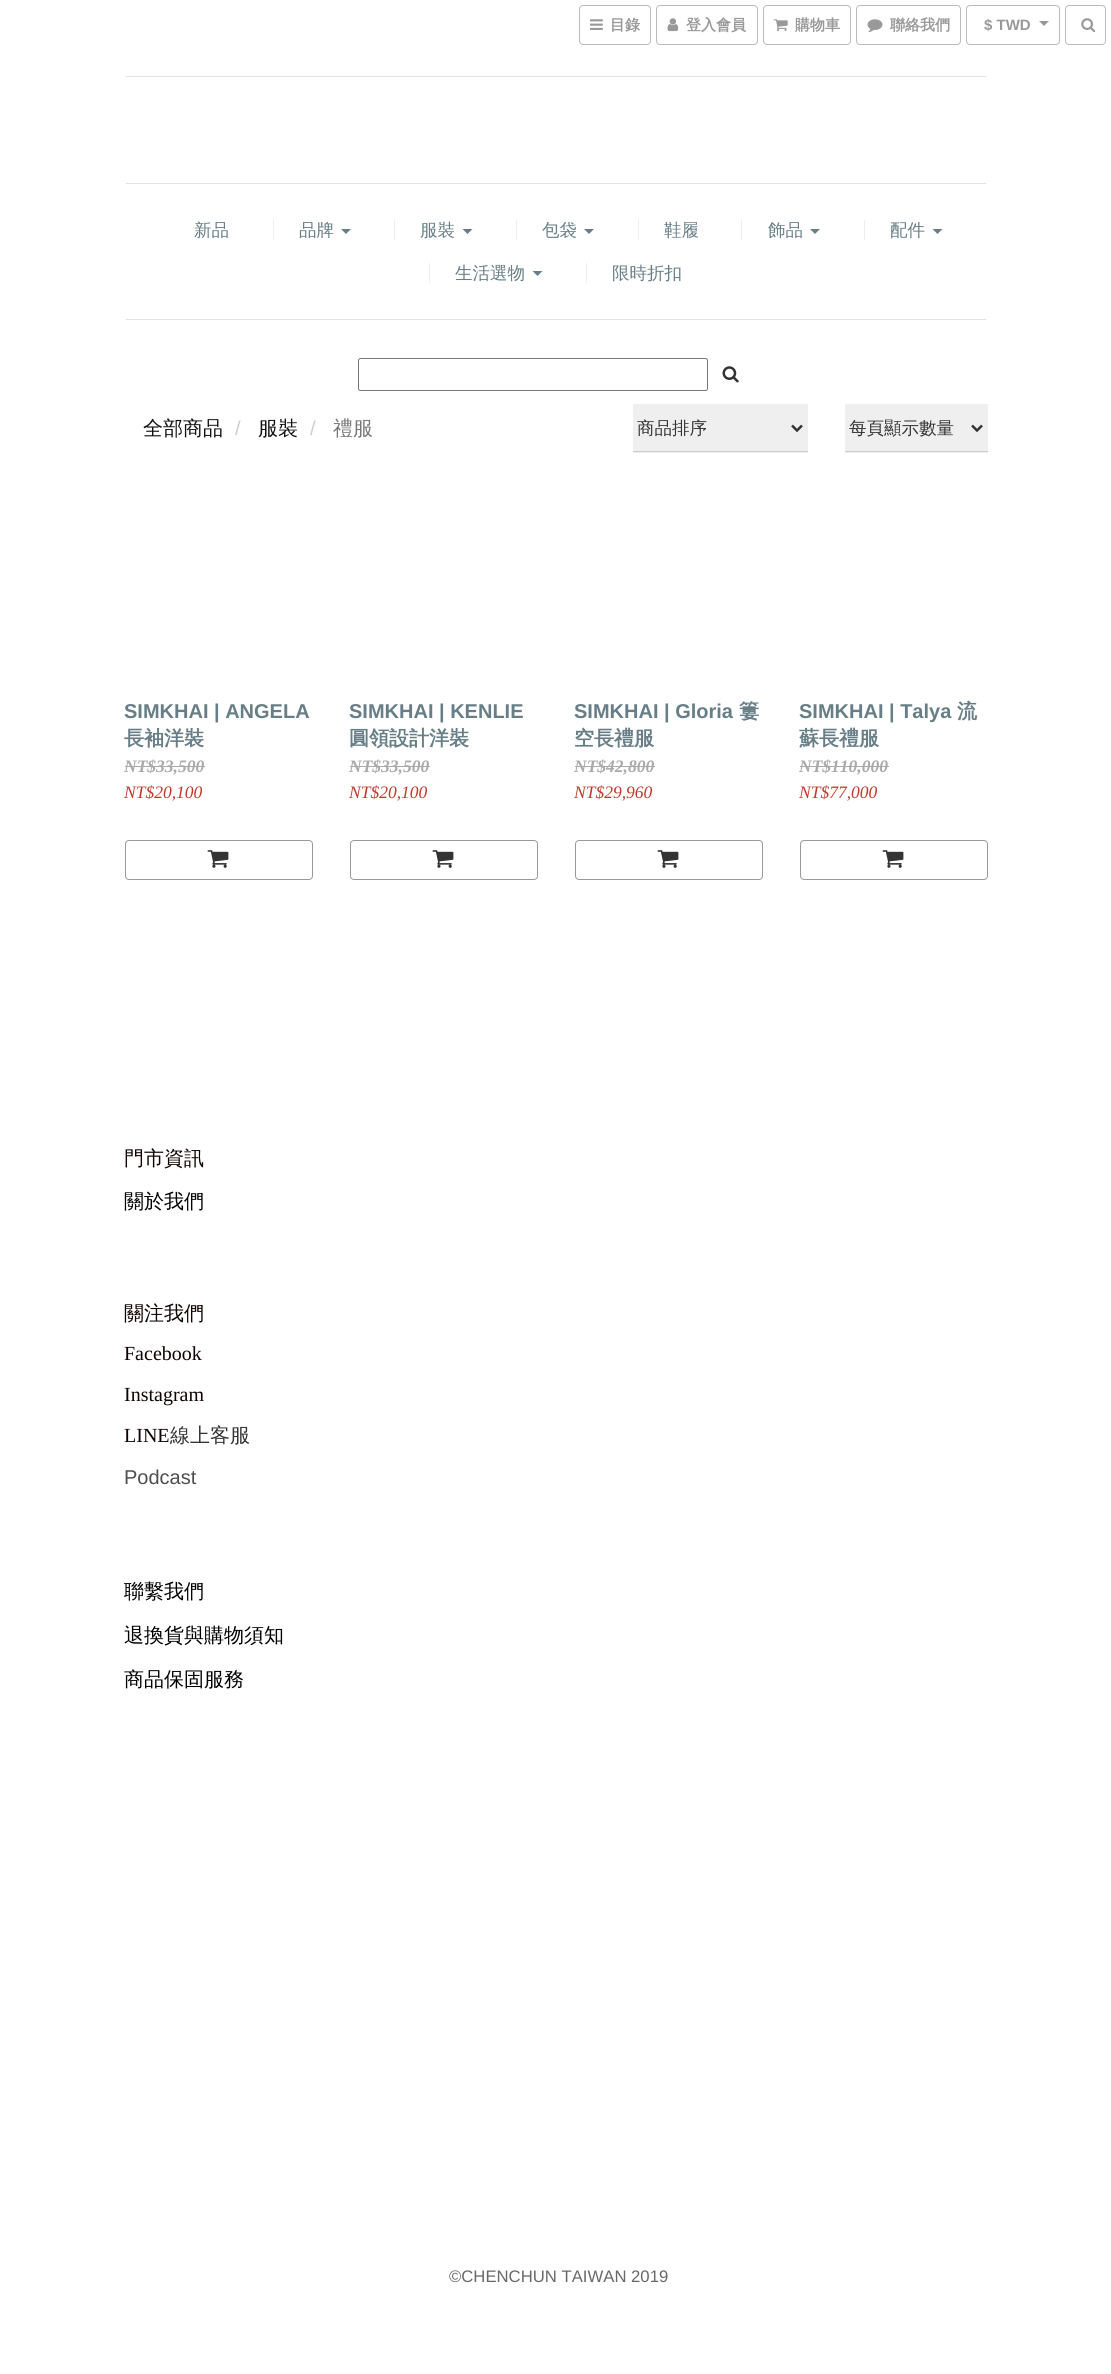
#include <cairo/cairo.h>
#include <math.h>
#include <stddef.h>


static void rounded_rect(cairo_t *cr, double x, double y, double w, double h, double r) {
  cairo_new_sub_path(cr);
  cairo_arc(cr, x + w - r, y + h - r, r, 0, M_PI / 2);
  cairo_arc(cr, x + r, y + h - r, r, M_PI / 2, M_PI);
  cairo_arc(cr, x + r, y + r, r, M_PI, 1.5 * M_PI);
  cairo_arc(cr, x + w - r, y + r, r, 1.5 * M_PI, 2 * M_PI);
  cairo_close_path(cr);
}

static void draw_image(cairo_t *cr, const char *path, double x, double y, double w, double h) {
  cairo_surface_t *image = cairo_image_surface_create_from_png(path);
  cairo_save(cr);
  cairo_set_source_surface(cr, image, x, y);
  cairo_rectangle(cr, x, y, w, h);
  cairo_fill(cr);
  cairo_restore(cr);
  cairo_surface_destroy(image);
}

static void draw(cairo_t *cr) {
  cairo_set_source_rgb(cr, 1, 1, 1);
  cairo_paint(cr);
  rounded_rect(cr, 579.5, 5.5, 71, 39, 3.5);
  cairo_set_source_rgb(cr, 187 / 255.0, 187 / 255.0, 187 / 255.0);
  cairo_set_line_width(cr, 1);
  cairo_stroke(cr);
  draw_image(cr, "images/1.png", 590, 19, 13, 11);
  rounded_rect(cr, 656.5, 5.5, 101, 39, 3.5);
  cairo_stroke(cr);
  draw_image(cr, "images/2.png", 667, 18, 12, 14);
  rounded_rect(cr, 763.5, 5.5, 87, 39, 3.5);
  cairo_stroke(cr);
  draw_image(cr, "images/3.png", 773, 19, 15, 12);
  rounded_rect(cr, 856.5, 5.5, 104, 39, 3.5);
  cairo_stroke(cr);
  draw_image(cr, "images/4.png", 867, 19, 16, 13);
  rounded_rect(cr, 966.5, 5.5, 93, 39, 3.5);
  cairo_stroke(cr);
  cairo_set_source_rgb(cr, 153 / 255.0, 153 / 255.0, 153 / 255.0);
  cairo_new_path(cr);
  cairo_move_to(cr, 1039, 21);
  cairo_line_to(cr, 1049, 21);
  cairo_line_to(cr, 1044, 26);
  cairo_close_path(cr);
  cairo_fill(cr);
  rounded_rect(cr, 1065.5, 5.5, 40, 39, 3.5);
  cairo_set_source_rgb(cr, 187 / 255.0, 187 / 255.0, 187 / 255.0);
  cairo_stroke(cr);
  draw_image(cr, "images/5.png", 1081, 18, 15, 15);
  cairo_set_source_rgb(cr, 226 / 255.0, 226 / 255.0, 226 / 255.0);
  cairo_rectangle(cr, 126, 76, 860, 1);
  cairo_fill(cr);
  cairo_rectangle(cr, 126, 183, 860, 1);
  cairo_fill(cr);
  cairo_rectangle(cr, 126, 319, 860, 1);
  cairo_fill(cr);
  cairo_set_source_rgb(cr, 238 / 255.0, 238 / 255.0, 238 / 255.0);
  cairo_rectangle(cr, 273, 220, 1, 20);
  cairo_fill(cr);
  cairo_set_source_rgb(cr, 103 / 255.0, 126 / 255.0, 135 / 255.0);
  cairo_new_path(cr);
  cairo_move_to(cr, 341, 229);
  cairo_line_to(cr, 351, 229);
  cairo_line_to(cr, 346, 234);
  cairo_close_path(cr);
  cairo_fill(cr);
  cairo_set_source_rgb(cr, 238 / 255.0, 238 / 255.0, 238 / 255.0);
  cairo_rectangle(cr, 394, 220, 1, 20);
  cairo_fill(cr);
  cairo_set_source_rgb(cr, 103 / 255.0, 126 / 255.0, 135 / 255.0);
  cairo_new_path(cr);
  cairo_move_to(cr, 462.5, 229);
  cairo_line_to(cr, 472.5, 229);
  cairo_line_to(cr, 467.5, 234);
  cairo_close_path(cr);
  cairo_fill(cr);
  cairo_set_source_rgb(cr, 238 / 255.0, 238 / 255.0, 238 / 255.0);
  cairo_rectangle(cr, 516, 220, 1, 20);
  cairo_fill(cr);
  cairo_set_source_rgb(cr, 103 / 255.0, 126 / 255.0, 135 / 255.0);
  cairo_new_path(cr);
  cairo_move_to(cr, 584, 229);
  cairo_line_to(cr, 594, 229);
  cairo_line_to(cr, 589, 234);
  cairo_close_path(cr);
  cairo_fill(cr);
  cairo_set_source_rgb(cr, 238 / 255.0, 238 / 255.0, 238 / 255.0);
  cairo_rectangle(cr, 638, 220, 1, 20);
  cairo_fill(cr);
  cairo_rectangle(cr, 741, 220, 1, 20);
  cairo_fill(cr);
  cairo_set_source_rgb(cr, 103 / 255.0, 126 / 255.0, 135 / 255.0);
  cairo_new_path(cr);
  cairo_move_to(cr, 810, 229);
  cairo_line_to(cr, 820, 229);
  cairo_line_to(cr, 815, 234);
  cairo_close_path(cr);
  cairo_fill(cr);
  cairo_set_source_rgb(cr, 238 / 255.0, 238 / 255.0, 238 / 255.0);
  cairo_rectangle(cr, 864, 220, 1, 20);
  cairo_fill(cr);
  cairo_set_source_rgb(cr, 103 / 255.0, 126 / 255.0, 135 / 255.0);
  cairo_new_path(cr);
  cairo_move_to(cr, 932.5, 229);
  cairo_line_to(cr, 942.5, 229);
  cairo_line_to(cr, 937.5, 234);
  cairo_close_path(cr);
  cairo_fill(cr);
  cairo_set_source_rgb(cr, 238 / 255.0, 238 / 255.0, 238 / 255.0);
  cairo_rectangle(cr, 429, 263, 1, 20);
  cairo_fill(cr);
  cairo_set_source_rgb(cr, 103 / 255.0, 126 / 255.0, 135 / 255.0);
  cairo_new_path(cr);
  cairo_move_to(cr, 532.5, 271);
  cairo_line_to(cr, 542.5, 271);
  cairo_line_to(cr, 537.5, 276);
  cairo_close_path(cr);
  cairo_fill(cr);
  cairo_set_source_rgb(cr, 238 / 255.0, 238 / 255.0, 238 / 255.0);
  cairo_rectangle(cr, 586, 263, 1, 20);
  cairo_fill(cr);
  rounded_rect(cr, 358.5, 358.5, 349, 32, 2);
  cairo_set_source_rgb(cr, 118 / 255.0, 118 / 255.0, 118 / 255.0);
  cairo_stroke(cr);
  draw_image(cr, "images/6.png", 722, 366, 17, 17);
  cairo_set_source_rgb(cr, 239 / 255.0, 239 / 255.0, 239 / 255.0);
  cairo_rectangle(cr, 633, 404, 175, 49);
  cairo_fill(cr);
  cairo_set_source_rgb(cr, 204 / 255.0, 204 / 255.0, 204 / 255.0);
  cairo_rectangle(cr, 633, 451, 175, 1);
  cairo_fill(cr);
  cairo_new_path(cr);
  cairo_move_to(cr, 792, 425.5);
  cairo_line_to(cr, 797, 430.5);
  cairo_line_to(cr, 802, 425.5);
  cairo_set_source_rgb(cr, 51 / 255.0, 51 / 255.0, 51 / 255.0);
  cairo_set_line_width(cr, 2.5);
  cairo_stroke(cr);
  cairo_set_source_rgb(cr, 239 / 255.0, 239 / 255.0, 239 / 255.0);
  cairo_rectangle(cr, 845, 404, 143, 49);
  cairo_fill(cr);
  cairo_set_source_rgb(cr, 204 / 255.0, 204 / 255.0, 204 / 255.0);
  cairo_rectangle(cr, 845, 451, 143, 1);
  cairo_fill(cr);
  cairo_new_path(cr);
  cairo_move_to(cr, 972, 425.5);
  cairo_line_to(cr, 977, 430.5);
  cairo_line_to(cr, 982, 425.5);
  cairo_set_source_rgb(cr, 51 / 255.0, 51 / 255.0, 51 / 255.0);
  cairo_stroke(cr);
  cairo_set_source_rgb(cr, 170 / 255.0, 170 / 255.0, 170 / 255.0);
  cairo_rectangle(cr, 125, 766, 80, 1);
  cairo_fill(cr);
  rounded_rect(cr, 125.5, 840.5, 187, 39, 3.5);
  cairo_set_source_rgb(cr, 153 / 255.0, 153 / 255.0, 153 / 255.0);
  cairo_set_line_width(cr, 1);
  cairo_stroke(cr);
  draw_image(cr, "images/7.png", 207, 850, 22, 18);
  cairo_set_source_rgb(cr, 170 / 255.0, 170 / 255.0, 170 / 255.0);
  cairo_rectangle(cr, 350, 766, 80, 1);
  cairo_fill(cr);
  rounded_rect(cr, 350.5, 840.5, 187, 39, 3.5);
  cairo_set_source_rgb(cr, 153 / 255.0, 153 / 255.0, 153 / 255.0);
  cairo_stroke(cr);
  draw_image(cr, "images/7.png", 432, 850, 22, 18);
  cairo_set_source_rgb(cr, 170 / 255.0, 170 / 255.0, 170 / 255.0);
  cairo_rectangle(cr, 575, 766, 80, 1);
  cairo_fill(cr);
  rounded_rect(cr, 575.5, 840.5, 187, 39, 3.5);
  cairo_set_source_rgb(cr, 153 / 255.0, 153 / 255.0, 153 / 255.0);
  cairo_stroke(cr);
  draw_image(cr, "images/7.png", 657, 850, 22, 18);
  cairo_set_source_rgb(cr, 170 / 255.0, 170 / 255.0, 170 / 255.0);
  cairo_rectangle(cr, 800, 766, 89, 1);
  cairo_fill(cr);
  rounded_rect(cr, 800.5, 840.5, 187, 39, 3.5);
  cairo_set_source_rgb(cr, 153 / 255.0, 153 / 255.0, 153 / 255.0);
  cairo_stroke(cr);
  draw_image(cr, "images/7.png", 882, 850, 22, 18);
  cairo_select_font_face(cr, "WenQuanYi Zen Hei", CAIRO_FONT_SLANT_NORMAL, CAIRO_FONT_WEIGHT_BOLD);
  cairo_set_font_size(cr, 15);
  cairo_move_to(cr, 610, 30);
  cairo_show_text(cr, "目錄");
  cairo_move_to(cr, 686, 30);
  cairo_show_text(cr, "登入會員");
  cairo_move_to(cr, 795, 30);
  cairo_show_text(cr, "購物車");
  cairo_move_to(cr, 890, 30);
  cairo_show_text(cr, "聯絡我們");
  cairo_select_font_face(cr, "Liberation Sans", CAIRO_FONT_SLANT_NORMAL, CAIRO_FONT_WEIGHT_BOLD);
  cairo_move_to(cr, 984, 30);
  cairo_show_text(cr, "$ TWD");
  cairo_select_font_face(cr, "WenQuanYi Zen Hei Medium", CAIRO_FONT_SLANT_NORMAL, CAIRO_FONT_WEIGHT_NORMAL);
  cairo_set_font_size(cr, 17.5);
  cairo_set_source_rgb(cr, 103 / 255.0, 126 / 255.0, 135 / 255.0);
  cairo_move_to(cr, 194, 236);
  cairo_show_text(cr, "新品");
  cairo_move_to(cr, 299, 236);
  cairo_show_text(cr, "品牌");
  cairo_move_to(cr, 420, 236);
  cairo_show_text(cr, "服裝");
  cairo_move_to(cr, 542, 236);
  cairo_show_text(cr, "包袋");
  cairo_move_to(cr, 664, 236);
  cairo_show_text(cr, "鞋履");
  cairo_move_to(cr, 768, 236);
  cairo_show_text(cr, "飾品");
  cairo_move_to(cr, 890, 236);
  cairo_show_text(cr, "配件");
  cairo_move_to(cr, 455, 279);
  cairo_show_text(cr, "生活選物");
  cairo_move_to(cr, 612, 279);
  cairo_show_text(cr, "限時折扣");
  cairo_set_font_size(cr, 20);
  cairo_set_source_rgb(cr, 17 / 255.0, 17 / 255.0, 17 / 255.0);
  cairo_move_to(cr, 143, 435);
  cairo_show_text(cr, "全部商品");
  cairo_select_font_face(cr, "Liberation Sans", CAIRO_FONT_SLANT_NORMAL, CAIRO_FONT_WEIGHT_NORMAL);
  cairo_set_source_rgb(cr, 204 / 255.0, 204 / 255.0, 204 / 255.0);
  cairo_move_to(cr, 235, 435);
  cairo_show_text(cr, "/");
  cairo_select_font_face(cr, "WenQuanYi Zen Hei Medium", CAIRO_FONT_SLANT_NORMAL, CAIRO_FONT_WEIGHT_NORMAL);
  cairo_set_source_rgb(cr, 17 / 255.0, 17 / 255.0, 17 / 255.0);
  cairo_move_to(cr, 258, 435);
  cairo_show_text(cr, "服裝");
  cairo_select_font_face(cr, "Liberation Sans", CAIRO_FONT_SLANT_NORMAL, CAIRO_FONT_WEIGHT_NORMAL);
  cairo_set_source_rgb(cr, 204 / 255.0, 204 / 255.0, 204 / 255.0);
  cairo_move_to(cr, 310, 435);
  cairo_show_text(cr, "/");
  cairo_select_font_face(cr, "WenQuanYi Zen Hei Medium", CAIRO_FONT_SLANT_NORMAL, CAIRO_FONT_WEIGHT_NORMAL);
  cairo_set_source_rgb(cr, 119 / 255.0, 119 / 255.0, 119 / 255.0);
  cairo_move_to(cr, 333, 435);
  cairo_show_text(cr, "禮服");
  cairo_set_font_size(cr, 17.5);
  cairo_set_source_rgb(cr, 51 / 255.0, 51 / 255.0, 51 / 255.0);
  cairo_move_to(cr, 637, 434);
  cairo_show_text(cr, "商品排序");
  cairo_move_to(cr, 849, 434);
  cairo_show_text(cr, "每頁顯示數量");
  cairo_select_font_face(cr, "Liberation Sans", CAIRO_FONT_SLANT_NORMAL, CAIRO_FONT_WEIGHT_BOLD);
  cairo_set_font_size(cr, 20);
  cairo_set_source_rgb(cr, 103 / 255.0, 126 / 255.0, 135 / 255.0);
  cairo_move_to(cr, 124, 718);
  cairo_show_text(cr, "SIMKHAI | ANGELA");
  cairo_select_font_face(cr, "WenQuanYi Zen Hei", CAIRO_FONT_SLANT_NORMAL, CAIRO_FONT_WEIGHT_BOLD);
  cairo_move_to(cr, 124, 745);
  cairo_show_text(cr, "長袖洋裝");
  cairo_select_font_face(cr, "Liberation Serif", CAIRO_FONT_SLANT_ITALIC, CAIRO_FONT_WEIGHT_BOLD);
  cairo_set_font_size(cr, 17.5);
  cairo_set_source_rgb(cr, 170 / 255.0, 170 / 255.0, 170 / 255.0);
  cairo_move_to(cr, 124, 772);
  cairo_show_text(cr, "NT$33,500");
  cairo_select_font_face(cr, "Liberation Serif", CAIRO_FONT_SLANT_ITALIC, CAIRO_FONT_WEIGHT_NORMAL);
  cairo_set_source_rgb(cr, 192 / 255.0, 57 / 255.0, 43 / 255.0);
  cairo_move_to(cr, 124, 798);
  cairo_show_text(cr, "NT$20,100");
  cairo_select_font_face(cr, "Liberation Sans", CAIRO_FONT_SLANT_NORMAL, CAIRO_FONT_WEIGHT_BOLD);
  cairo_set_font_size(cr, 20);
  cairo_set_source_rgb(cr, 103 / 255.0, 126 / 255.0, 135 / 255.0);
  cairo_move_to(cr, 349, 718);
  cairo_show_text(cr, "SIMKHAI | KENLIE");
  cairo_select_font_face(cr, "WenQuanYi Zen Hei", CAIRO_FONT_SLANT_NORMAL, CAIRO_FONT_WEIGHT_BOLD);
  cairo_move_to(cr, 349, 745);
  cairo_show_text(cr, "圓領設計洋裝");
  cairo_select_font_face(cr, "Liberation Serif", CAIRO_FONT_SLANT_ITALIC, CAIRO_FONT_WEIGHT_BOLD);
  cairo_set_font_size(cr, 17.5);
  cairo_set_source_rgb(cr, 170 / 255.0, 170 / 255.0, 170 / 255.0);
  cairo_move_to(cr, 349, 772);
  cairo_show_text(cr, "NT$33,500");
  cairo_select_font_face(cr, "Liberation Serif", CAIRO_FONT_SLANT_ITALIC, CAIRO_FONT_WEIGHT_NORMAL);
  cairo_set_source_rgb(cr, 192 / 255.0, 57 / 255.0, 43 / 255.0);
  cairo_move_to(cr, 349, 798);
  cairo_show_text(cr, "NT$20,100");
  cairo_select_font_face(cr, "Liberation Sans", CAIRO_FONT_SLANT_NORMAL, CAIRO_FONT_WEIGHT_BOLD);
  cairo_set_font_size(cr, 20);
  cairo_set_source_rgb(cr, 103 / 255.0, 126 / 255.0, 135 / 255.0);
  cairo_move_to(cr, 574, 718);
  cairo_show_text(cr, "SIMKHAI | Gloria");
  cairo_select_font_face(cr, "WenQuanYi Zen Hei", CAIRO_FONT_SLANT_NORMAL, CAIRO_FONT_WEIGHT_BOLD);
  cairo_move_to(cr, 739, 718);
  cairo_show_text(cr, "簍");
  cairo_move_to(cr, 574, 745);
  cairo_show_text(cr, "空長禮服");
  cairo_select_font_face(cr, "Liberation Serif", CAIRO_FONT_SLANT_ITALIC, CAIRO_FONT_WEIGHT_BOLD);
  cairo_set_font_size(cr, 17.5);
  cairo_set_source_rgb(cr, 170 / 255.0, 170 / 255.0, 170 / 255.0);
  cairo_move_to(cr, 574, 772);
  cairo_show_text(cr, "NT$42,800");
  cairo_select_font_face(cr, "Liberation Serif", CAIRO_FONT_SLANT_ITALIC, CAIRO_FONT_WEIGHT_NORMAL);
  cairo_set_source_rgb(cr, 192 / 255.0, 57 / 255.0, 43 / 255.0);
  cairo_move_to(cr, 574, 798);
  cairo_show_text(cr, "NT$29,960");
  cairo_select_font_face(cr, "Liberation Sans", CAIRO_FONT_SLANT_NORMAL, CAIRO_FONT_WEIGHT_BOLD);
  cairo_set_font_size(cr, 20);
  cairo_set_source_rgb(cr, 103 / 255.0, 126 / 255.0, 135 / 255.0);
  cairo_move_to(cr, 799, 718);
  cairo_show_text(cr, "SIMKHAI | Talya");
  cairo_select_font_face(cr, "WenQuanYi Zen Hei", CAIRO_FONT_SLANT_NORMAL, CAIRO_FONT_WEIGHT_BOLD);
  cairo_move_to(cr, 957, 718);
  cairo_show_text(cr, "流");
  cairo_move_to(cr, 799, 745);
  cairo_show_text(cr, "蘇長禮服");
  cairo_select_font_face(cr, "Liberation Serif", CAIRO_FONT_SLANT_ITALIC, CAIRO_FONT_WEIGHT_BOLD);
  cairo_set_font_size(cr, 17.5);
  cairo_set_source_rgb(cr, 170 / 255.0, 170 / 255.0, 170 / 255.0);
  cairo_move_to(cr, 799, 772);
  cairo_show_text(cr, "NT$110,000");
  cairo_select_font_face(cr, "Liberation Serif", CAIRO_FONT_SLANT_ITALIC, CAIRO_FONT_WEIGHT_NORMAL);
  cairo_set_source_rgb(cr, 192 / 255.0, 57 / 255.0, 43 / 255.0);
  cairo_move_to(cr, 799, 798);
  cairo_show_text(cr, "NT$77,000");
  cairo_select_font_face(cr, "WenQuanYi Zen Hei Medium", CAIRO_FONT_SLANT_NORMAL, CAIRO_FONT_WEIGHT_NORMAL);
  cairo_set_font_size(cr, 20);
  cairo_set_source_rgb(cr, 15 / 255.0, 1 / 255.0, 1 / 255.0);
  cairo_move_to(cr, 124, 1165);
  cairo_show_text(cr, "門市資訊");
  cairo_set_source_rgb(cr, 0, 0, 0);
  cairo_move_to(cr, 124, 1208);
  cairo_show_text(cr, "關於我們");
  cairo_set_source_rgb(cr, 15 / 255.0, 1 / 255.0, 1 / 255.0);
  cairo_move_to(cr, 124, 1320);
  cairo_show_text(cr, "關注我們");
  cairo_select_font_face(cr, "Liberation Serif", CAIRO_FONT_SLANT_NORMAL, CAIRO_FONT_WEIGHT_NORMAL);
  cairo_move_to(cr, 124, 1360);
  cairo_show_text(cr, "Facebook");
  cairo_move_to(cr, 124, 1401);
  cairo_show_text(cr, "Instagram");
  cairo_move_to(cr, 124, 1442);
  cairo_show_text(cr, "LINE");
  cairo_select_font_face(cr, "WenQuanYi Zen Hei Medium", CAIRO_FONT_SLANT_NORMAL, CAIRO_FONT_WEIGHT_NORMAL);
  cairo_set_source_rgb(cr, 51 / 255.0, 51 / 255.0, 51 / 255.0);
  cairo_move_to(cr, 170, 1442);
  cairo_show_text(cr, "線上客服");
  cairo_select_font_face(cr, "Liberation Sans", CAIRO_FONT_SLANT_NORMAL, CAIRO_FONT_WEIGHT_NORMAL);
  cairo_set_source_rgb(cr, 78 / 255.0, 78 / 255.0, 78 / 255.0);
  cairo_move_to(cr, 124, 1484);
  cairo_show_text(cr, "Podcast");
  cairo_select_font_face(cr, "WenQuanYi Zen Hei Medium", CAIRO_FONT_SLANT_NORMAL, CAIRO_FONT_WEIGHT_NORMAL);
  cairo_set_source_rgb(cr, 0, 0, 0);
  cairo_move_to(cr, 124, 1598);
  cairo_show_text(cr, "聯繫我們");
  cairo_move_to(cr, 124, 1642);
  cairo_show_text(cr, "退換貨與購物須知");
  cairo_move_to(cr, 124, 1686);
  cairo_show_text(cr, "商品保固服務");
  cairo_select_font_face(cr, "Liberation Sans", CAIRO_FONT_SLANT_NORMAL, CAIRO_FONT_WEIGHT_NORMAL);
  cairo_set_font_size(cr, 16.7);
  cairo_set_source_rgb(cr, 104 / 255.0, 104 / 255.0, 104 / 255.0);
  cairo_move_to(cr, 449, 2282);
  cairo_show_text(cr, "©CHENCHUN TAIWAN 2019");
}

int main(void) {
  cairo_surface_t *surface = cairo_image_surface_create(CAIRO_FORMAT_RGB24, 1111, 2374);
  cairo_t *cr = cairo_create(surface);
  cairo_font_options_t *options = cairo_font_options_create();
  cairo_font_options_set_hint_metrics(options, CAIRO_HINT_METRICS_OFF);
  cairo_font_options_set_hint_style(options, CAIRO_HINT_STYLE_NONE);
  cairo_set_font_options(cr, options);
  cairo_set_miter_limit(cr, 4);
  draw(cr);
  cairo_surface_write_to_png(surface, "out.png");
  cairo_font_options_destroy(options);
  cairo_destroy(cr);
  cairo_surface_destroy(surface);
  return 0;
}
